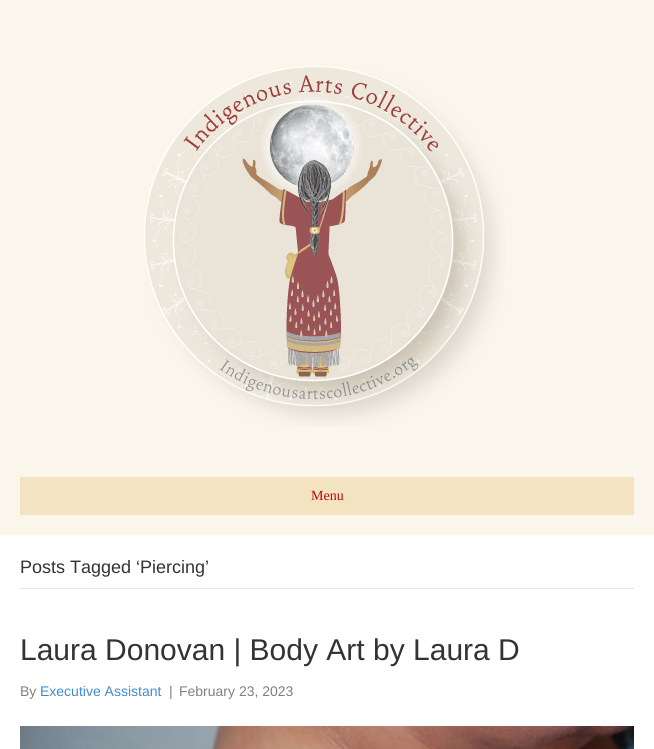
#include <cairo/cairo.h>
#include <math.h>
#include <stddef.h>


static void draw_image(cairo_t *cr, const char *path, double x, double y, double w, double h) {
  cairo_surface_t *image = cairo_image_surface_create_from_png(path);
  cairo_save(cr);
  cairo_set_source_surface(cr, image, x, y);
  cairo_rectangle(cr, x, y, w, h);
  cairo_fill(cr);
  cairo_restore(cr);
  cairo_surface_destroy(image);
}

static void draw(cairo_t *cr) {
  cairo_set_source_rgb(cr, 251 / 255.0, 246 / 255.0, 235 / 255.0);
  cairo_paint(cr);
  draw_image(cr, "images/1.png", 144, 65, 361, 362);
  cairo_set_source_rgb(cr, 243 / 255.0, 227 / 255.0, 193 / 255.0);
  cairo_rectangle(cr, 20, 477, 614, 38);
  cairo_fill(cr);
  cairo_set_source_rgb(cr, 1, 1, 1);
  cairo_rectangle(cr, 0, 535, 654, 214);
  cairo_fill(cr);
  cairo_set_source_rgb(cr, 230 / 255.0, 230 / 255.0, 230 / 255.0);
  cairo_rectangle(cr, 20, 588, 614, 1);
  cairo_fill(cr);
  draw_image(cr, "images/2.png", 20, 726, 614, 23);
  cairo_select_font_face(cr, "Liberation Serif", CAIRO_FONT_SLANT_NORMAL, CAIRO_FONT_WEIGHT_NORMAL);
  cairo_set_font_size(cr, 14);
  cairo_set_source_rgb(cr, 184 / 255.0, 10 / 255.0, 10 / 255.0);
  cairo_move_to(cr, 311, 500);
  cairo_show_text(cr, "Menu");
  cairo_select_font_face(cr, "Liberation Sans", CAIRO_FONT_SLANT_NORMAL, CAIRO_FONT_WEIGHT_NORMAL);
  cairo_set_font_size(cr, 18);
  cairo_set_source_rgb(cr, 51 / 255.0, 51 / 255.0, 51 / 255.0);
  cairo_move_to(cr, 20, 573);
  cairo_show_text(cr, "Posts Tagged ‘Piercing’");
  cairo_set_font_size(cr, 30);
  cairo_move_to(cr, 20, 660);
  cairo_show_text(cr, "Laura Donovan | Body Art by Laura D");
  cairo_set_font_size(cr, 14);
  cairo_set_source_rgb(cr, 128 / 255.0, 128 / 255.0, 128 / 255.0);
  cairo_move_to(cr, 20, 696);
  cairo_show_text(cr, "By");
  cairo_set_source_rgb(cr, 66 / 255.0, 139 / 255.0, 202 / 255.0);
  cairo_move_to(cr, 40, 696);
  cairo_show_text(cr, "Executive Assistant");
  cairo_set_source_rgb(cr, 128 / 255.0, 128 / 255.0, 128 / 255.0);
  cairo_move_to(cr, 169, 696);
  cairo_show_text(cr, "|");
  cairo_move_to(cr, 179, 696);
  cairo_show_text(cr, "February 23, 2023");
}

int main(void) {
  cairo_surface_t *surface = cairo_image_surface_create(CAIRO_FORMAT_RGB24, 654, 749);
  cairo_t *cr = cairo_create(surface);
  cairo_font_options_t *options = cairo_font_options_create();
  cairo_font_options_set_hint_metrics(options, CAIRO_HINT_METRICS_OFF);
  cairo_font_options_set_hint_style(options, CAIRO_HINT_STYLE_NONE);
  cairo_set_font_options(cr, options);
  cairo_set_miter_limit(cr, 4);
  draw(cr);
  cairo_surface_write_to_png(surface, "out.png");
  cairo_font_options_destroy(options);
  cairo_destroy(cr);
  cairo_surface_destroy(surface);
  return 0;
}
